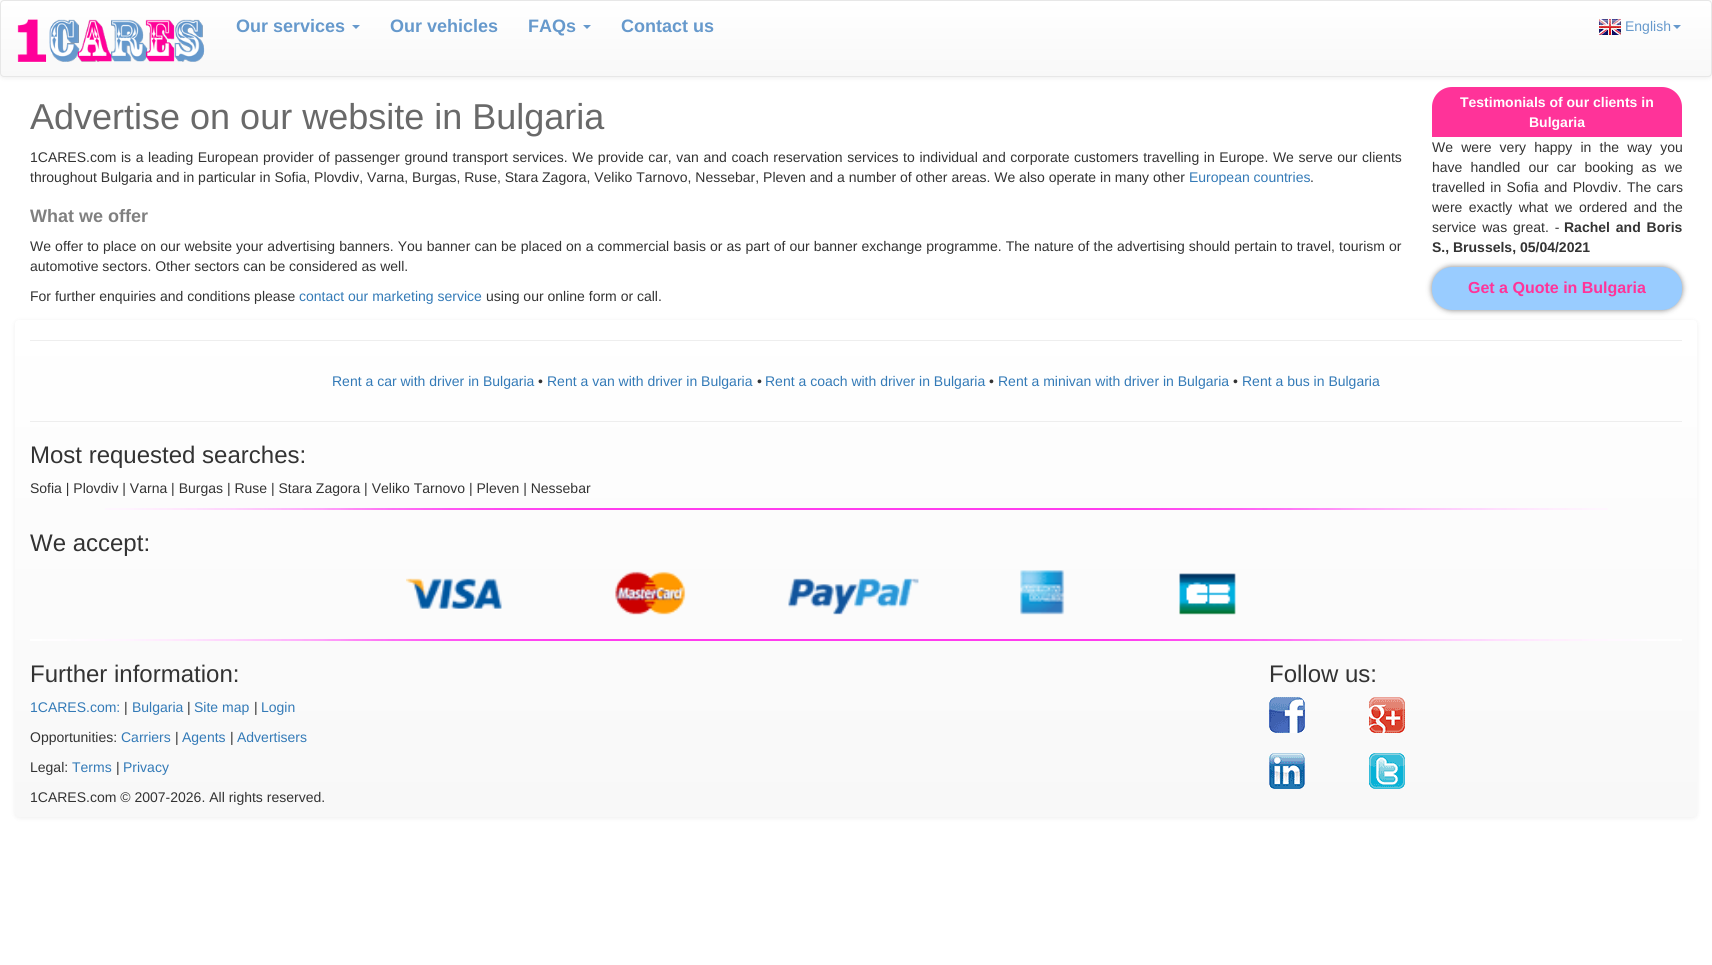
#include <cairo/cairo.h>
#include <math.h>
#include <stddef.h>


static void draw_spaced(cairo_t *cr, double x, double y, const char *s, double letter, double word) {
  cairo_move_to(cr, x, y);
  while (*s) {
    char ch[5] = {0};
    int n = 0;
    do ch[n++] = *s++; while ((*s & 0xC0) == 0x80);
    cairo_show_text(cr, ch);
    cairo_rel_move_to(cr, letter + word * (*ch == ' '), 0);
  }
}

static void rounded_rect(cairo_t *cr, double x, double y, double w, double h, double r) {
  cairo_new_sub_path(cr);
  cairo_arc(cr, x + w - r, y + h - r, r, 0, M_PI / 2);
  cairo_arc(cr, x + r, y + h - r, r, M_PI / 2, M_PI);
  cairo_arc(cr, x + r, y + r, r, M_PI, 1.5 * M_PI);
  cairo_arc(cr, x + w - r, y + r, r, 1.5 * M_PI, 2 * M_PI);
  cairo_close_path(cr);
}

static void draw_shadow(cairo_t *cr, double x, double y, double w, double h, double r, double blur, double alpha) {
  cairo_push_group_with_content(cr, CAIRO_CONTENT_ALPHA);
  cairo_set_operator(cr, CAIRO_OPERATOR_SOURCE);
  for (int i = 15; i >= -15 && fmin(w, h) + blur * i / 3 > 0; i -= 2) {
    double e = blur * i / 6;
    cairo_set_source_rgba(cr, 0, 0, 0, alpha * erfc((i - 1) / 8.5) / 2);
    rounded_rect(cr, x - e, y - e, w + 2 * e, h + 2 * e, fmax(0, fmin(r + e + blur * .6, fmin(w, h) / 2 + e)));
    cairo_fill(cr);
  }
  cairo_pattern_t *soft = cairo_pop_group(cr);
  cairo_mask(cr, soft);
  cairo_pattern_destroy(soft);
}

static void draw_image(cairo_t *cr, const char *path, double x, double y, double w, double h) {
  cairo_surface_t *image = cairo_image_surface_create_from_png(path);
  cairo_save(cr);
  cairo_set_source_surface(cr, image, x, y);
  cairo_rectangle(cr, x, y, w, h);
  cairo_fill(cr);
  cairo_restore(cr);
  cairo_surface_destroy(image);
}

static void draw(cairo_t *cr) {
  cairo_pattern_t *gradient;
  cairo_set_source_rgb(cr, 1, 1, 1);
  cairo_paint(cr);
  cairo_set_source_rgb(cr, 0, 0, 0);
  draw_shadow(cr, 0, 1, 1712, 77, 4, 2.5, 0.07);
  cairo_save(cr);
  rounded_rect(cr, 0, 0, 1712, 77, 4);
  cairo_clip(cr);
  gradient = cairo_pattern_create_linear(856, 1, 856, 76);
  cairo_pattern_add_color_stop_rgba(gradient, 0, 1, 1, 1, 1);
  cairo_pattern_add_color_stop_rgba(gradient, 1, 248 / 255.0, 248 / 255.0, 248 / 255.0, 1);
  cairo_set_source(cr, gradient);
  cairo_pattern_destroy(gradient);
  cairo_rectangle(cr, 0, 1, 1712, 75);
  cairo_fill(cr);
  cairo_restore(cr);
  rounded_rect(cr, 0.5, 0.5, 1711, 76, 3.5);
  cairo_set_source_rgb(cr, 231 / 255.0, 231 / 255.0, 231 / 255.0);
  cairo_set_line_width(cr, 1);
  cairo_stroke(cr);
  draw_image(cr, "images/1.png", 17, 19, 188, 44);
  cairo_set_source_rgb(cr, 102 / 255.0, 153 / 255.0, 204 / 255.0);
  cairo_new_path(cr);
  cairo_move_to(cr, 352, 25);
  cairo_line_to(cr, 360, 25);
  cairo_line_to(cr, 356, 29);
  cairo_close_path(cr);
  cairo_fill(cr);
  cairo_new_path(cr);
  cairo_move_to(cr, 583, 25);
  cairo_line_to(cr, 591, 25);
  cairo_line_to(cr, 587, 29);
  cairo_close_path(cr);
  cairo_fill(cr);
  draw_image(cr, "images/2.png", 1599, 19, 22, 16);
  cairo_new_path(cr);
  cairo_move_to(cr, 1673, 25);
  cairo_line_to(cr, 1681, 25);
  cairo_line_to(cr, 1677, 29);
  cairo_close_path(cr);
  cairo_fill(cr);
  cairo_set_source_rgb(cr, 1, 51 / 255.0, 153 / 255.0);
  cairo_new_path(cr);
  cairo_move_to(cr, 1452, 87);
  cairo_line_to(cr, 1662, 87);
  cairo_curve_to(cr, 1673, 87, 1682, 96, 1682, 107);
  cairo_line_to(cr, 1682, 137);
  cairo_line_to(cr, 1432, 137);
  cairo_line_to(cr, 1432, 107);
  cairo_curve_to(cr, 1432, 96, 1441, 87, 1452, 87);
  cairo_close_path(cr);
  cairo_fill(cr);
  cairo_set_source_rgb(cr, 0, 0, 0);
  draw_shadow(cr, 1432, 267, 250, 43, 20, 3, 0.5);
  cairo_set_source_rgb(cr, 153 / 255.0, 204 / 255.0, 1);
  rounded_rect(cr, 1432, 267, 250, 43, 20);
  cairo_fill(cr);
  cairo_set_source_rgb(cr, 0, 0, 0);
  draw_shadow(cr, 15, 321, 1682, 497, 4, 2.5, 0.07);
  gradient = cairo_pattern_create_linear(856, 320, 856, 817);
  cairo_pattern_add_color_stop_rgba(gradient, 0, 1, 1, 1, 1);
  cairo_pattern_add_color_stop_rgba(gradient, 1, 248 / 255.0, 248 / 255.0, 248 / 255.0, 1);
  cairo_set_source(cr, gradient);
  cairo_pattern_destroy(gradient);
  rounded_rect(cr, 15, 320, 1682, 497, 4);
  cairo_fill(cr);
  cairo_set_source_rgb(cr, 238 / 255.0, 238 / 255.0, 238 / 255.0);
  cairo_rectangle(cr, 30, 340, 1652, 1);
  cairo_fill(cr);
  cairo_rectangle(cr, 30, 421, 1652, 1);
  cairo_fill(cr);
  draw_image(cr, "images/3.png", 105, 508, 1503, 2);
  draw_image(cr, "images/4.png", 406, 570, 830, 45);
  draw_image(cr, "images/5.png", 30, 639, 1652, 2);
  draw_image(cr, "images/6.png", 1269, 697, 36, 36);
  draw_image(cr, "images/7.png", 1269, 753, 36, 36);
  draw_image(cr, "images/8.png", 1369, 697, 36, 36);
  draw_image(cr, "images/9.png", 1369, 753, 36, 36);
  cairo_select_font_face(cr, "Liberation Sans", CAIRO_FONT_SLANT_NORMAL, CAIRO_FONT_WEIGHT_BOLD);
  cairo_set_font_size(cr, 18);
  cairo_set_source_rgb(cr, 102 / 255.0, 153 / 255.0, 204 / 255.0);
  cairo_move_to(cr, 236, 32);
  cairo_show_text(cr, "Our services");
  cairo_move_to(cr, 390, 32);
  cairo_show_text(cr, "Our vehicles");
  cairo_move_to(cr, 528, 32);
  cairo_show_text(cr, "FAQs");
  cairo_move_to(cr, 621, 32);
  cairo_show_text(cr, "Contact us");
  cairo_select_font_face(cr, "Liberation Sans", CAIRO_FONT_SLANT_NORMAL, CAIRO_FONT_WEIGHT_NORMAL);
  cairo_set_font_size(cr, 14);
  cairo_move_to(cr, 1625, 31);
  cairo_show_text(cr, "English");
  cairo_set_font_size(cr, 36);
  cairo_set_source_rgb(cr, 105 / 255.0, 105 / 255.0, 105 / 255.0);
  cairo_move_to(cr, 30, 129);
  cairo_show_text(cr, "Advertise on our website in Bulgaria");
  cairo_set_font_size(cr, 14);
  cairo_set_source_rgb(cr, 51 / 255.0, 51 / 255.0, 51 / 255.0);
  draw_spaced(cr, 30, 162, "1CARES.com is a leading European provider of passenger ground transport services. We provide car, van and coach reservation services to individual and corporate customers travelling in Europe. We serve our clients", 0, 0.7);
  cairo_move_to(cr, 30, 182);
  cairo_show_text(cr, "throughout Bulgaria and in particular in Sofia, Plovdiv, Varna, Burgas, Ruse, Stara Zagora, Veliko Tarnovo, Nessebar, Pleven and a number of other areas. We also operate in many other");
  cairo_set_source_rgb(cr, 51 / 255.0, 122 / 255.0, 183 / 255.0);
  cairo_move_to(cr, 1189, 182);
  cairo_show_text(cr, "European countries");
  cairo_set_source_rgb(cr, 51 / 255.0, 51 / 255.0, 51 / 255.0);
  cairo_move_to(cr, 1310, 182);
  cairo_show_text(cr, ".");
  cairo_select_font_face(cr, "Liberation Sans", CAIRO_FONT_SLANT_NORMAL, CAIRO_FONT_WEIGHT_BOLD);
  cairo_set_font_size(cr, 18);
  cairo_set_source_rgb(cr, 128 / 255.0, 128 / 255.0, 128 / 255.0);
  cairo_move_to(cr, 30, 222);
  cairo_show_text(cr, "What we offer");
  cairo_select_font_face(cr, "Liberation Sans", CAIRO_FONT_SLANT_NORMAL, CAIRO_FONT_WEIGHT_NORMAL);
  cairo_set_font_size(cr, 14);
  cairo_set_source_rgb(cr, 51 / 255.0, 51 / 255.0, 51 / 255.0);
  draw_spaced(cr, 30, 251, "We offer to place on our website your advertising banners. You banner can be placed on a commercial basis or as part of our banner exchange programme. The nature of the advertising should pertain to travel, tourism or", 0, 0.2);
  cairo_move_to(cr, 30, 271);
  cairo_show_text(cr, "automotive sectors. Other sectors can be considered as well.");
  cairo_move_to(cr, 30, 301);
  cairo_show_text(cr, "For further enquiries and conditions please");
  cairo_set_source_rgb(cr, 51 / 255.0, 122 / 255.0, 183 / 255.0);
  cairo_move_to(cr, 299, 301);
  cairo_show_text(cr, "contact our marketing service");
  cairo_set_source_rgb(cr, 51 / 255.0, 51 / 255.0, 51 / 255.0);
  cairo_move_to(cr, 486, 301);
  cairo_show_text(cr, "using our online form or call.");
  cairo_select_font_face(cr, "Liberation Sans", CAIRO_FONT_SLANT_NORMAL, CAIRO_FONT_WEIGHT_BOLD);
  cairo_set_source_rgb(cr, 1, 1, 1);
  cairo_move_to(cr, 1460, 107);
  cairo_show_text(cr, "Testimonials of our clients in");
  cairo_move_to(cr, 1529, 127);
  cairo_show_text(cr, "Bulgaria");
  cairo_select_font_face(cr, "Liberation Sans", CAIRO_FONT_SLANT_NORMAL, CAIRO_FONT_WEIGHT_NORMAL);
  cairo_set_source_rgb(cr, 51 / 255.0, 51 / 255.0, 51 / 255.0);
  draw_spaced(cr, 1432, 152, "We were very happy in the way you", 0, 4.25);
  draw_spaced(cr, 1432, 172, "have handled our car booking as we", 0, 4.25);
  draw_spaced(cr, 1432, 192, "travelled in Sofia and Plovdiv. The cars", 0, 1.5);
  draw_spaced(cr, 1432, 212, "were exactly what we ordered and the", 0, 2.5);
  draw_spaced(cr, 1432, 232, "service was great. -", 0, 2);
  cairo_select_font_face(cr, "Liberation Sans", CAIRO_FONT_SLANT_NORMAL, CAIRO_FONT_WEIGHT_BOLD);
  draw_spaced(cr, 1564, 232, "Rachel and Boris", 0, 2);
  cairo_move_to(cr, 1432, 252);
  cairo_show_text(cr, "S., Brussels, 05/04/2021");
  cairo_set_font_size(cr, 16);
  cairo_set_source_rgb(cr, 1, 51 / 255.0, 153 / 255.0);
  cairo_move_to(cr, 1468, 293);
  cairo_show_text(cr, "Get a Quote in Bulgaria");
  cairo_select_font_face(cr, "Liberation Sans", CAIRO_FONT_SLANT_NORMAL, CAIRO_FONT_WEIGHT_NORMAL);
  cairo_set_font_size(cr, 14);
  cairo_set_source_rgb(cr, 51 / 255.0, 122 / 255.0, 183 / 255.0);
  cairo_move_to(cr, 332, 386);
  cairo_show_text(cr, "Rent a car with driver in Bulgaria");
  cairo_set_source_rgb(cr, 51 / 255.0, 51 / 255.0, 51 / 255.0);
  cairo_move_to(cr, 538, 386);
  cairo_show_text(cr, "•");
  cairo_set_source_rgb(cr, 51 / 255.0, 122 / 255.0, 183 / 255.0);
  cairo_move_to(cr, 547, 386);
  cairo_show_text(cr, "Rent a van with driver in Bulgaria");
  cairo_set_source_rgb(cr, 51 / 255.0, 51 / 255.0, 51 / 255.0);
  cairo_move_to(cr, 757, 386);
  cairo_show_text(cr, "•");
  cairo_set_source_rgb(cr, 51 / 255.0, 122 / 255.0, 183 / 255.0);
  cairo_move_to(cr, 765, 386);
  cairo_show_text(cr, "Rent a coach with driver in Bulgaria");
  cairo_set_source_rgb(cr, 51 / 255.0, 51 / 255.0, 51 / 255.0);
  cairo_move_to(cr, 989, 386);
  cairo_show_text(cr, "•");
  cairo_set_source_rgb(cr, 51 / 255.0, 122 / 255.0, 183 / 255.0);
  cairo_move_to(cr, 998, 386);
  cairo_show_text(cr, "Rent a minivan with driver in Bulgaria");
  cairo_set_source_rgb(cr, 51 / 255.0, 51 / 255.0, 51 / 255.0);
  cairo_move_to(cr, 1233, 386);
  cairo_show_text(cr, "•");
  cairo_set_source_rgb(cr, 51 / 255.0, 122 / 255.0, 183 / 255.0);
  cairo_move_to(cr, 1242, 386);
  cairo_show_text(cr, "Rent a bus in Bulgaria");
  cairo_set_font_size(cr, 24);
  cairo_set_source_rgb(cr, 51 / 255.0, 51 / 255.0, 51 / 255.0);
  cairo_move_to(cr, 30, 463);
  cairo_show_text(cr, "Most requested searches:");
  cairo_set_font_size(cr, 14);
  cairo_move_to(cr, 30, 493);
  cairo_show_text(cr, "Sofia | Plovdiv | Varna | Burgas | Ruse | Stara Zagora | Veliko Tarnovo | Pleven | Nessebar");
  cairo_set_font_size(cr, 24);
  cairo_move_to(cr, 30, 551);
  cairo_show_text(cr, "We accept:");
  cairo_move_to(cr, 30, 682);
  cairo_show_text(cr, "Further information:");
  cairo_set_font_size(cr, 14);
  cairo_set_source_rgb(cr, 51 / 255.0, 122 / 255.0, 183 / 255.0);
  cairo_move_to(cr, 30, 712);
  cairo_show_text(cr, "1CARES.com:");
  cairo_set_source_rgb(cr, 51 / 255.0, 51 / 255.0, 51 / 255.0);
  cairo_move_to(cr, 124, 712);
  cairo_show_text(cr, "|");
  cairo_set_source_rgb(cr, 51 / 255.0, 122 / 255.0, 183 / 255.0);
  cairo_move_to(cr, 132, 712);
  cairo_show_text(cr, "Bulgaria");
  cairo_set_source_rgb(cr, 51 / 255.0, 51 / 255.0, 51 / 255.0);
  cairo_move_to(cr, 187, 712);
  cairo_show_text(cr, "|");
  cairo_set_source_rgb(cr, 51 / 255.0, 122 / 255.0, 183 / 255.0);
  cairo_move_to(cr, 194, 712);
  cairo_show_text(cr, "Site map");
  cairo_set_source_rgb(cr, 51 / 255.0, 51 / 255.0, 51 / 255.0);
  cairo_move_to(cr, 254, 712);
  cairo_show_text(cr, "|");
  cairo_set_source_rgb(cr, 51 / 255.0, 122 / 255.0, 183 / 255.0);
  cairo_move_to(cr, 261, 712);
  cairo_show_text(cr, "Login");
  cairo_set_source_rgb(cr, 51 / 255.0, 51 / 255.0, 51 / 255.0);
  cairo_move_to(cr, 30, 742);
  cairo_show_text(cr, "Opportunities:");
  cairo_set_source_rgb(cr, 51 / 255.0, 122 / 255.0, 183 / 255.0);
  cairo_move_to(cr, 121, 742);
  cairo_show_text(cr, "Carriers");
  cairo_set_source_rgb(cr, 51 / 255.0, 51 / 255.0, 51 / 255.0);
  cairo_move_to(cr, 175, 742);
  cairo_show_text(cr, "|");
  cairo_set_source_rgb(cr, 51 / 255.0, 122 / 255.0, 183 / 255.0);
  cairo_move_to(cr, 182, 742);
  cairo_show_text(cr, "Agents");
  cairo_set_source_rgb(cr, 51 / 255.0, 51 / 255.0, 51 / 255.0);
  cairo_move_to(cr, 230, 742);
  cairo_show_text(cr, "|");
  cairo_set_source_rgb(cr, 51 / 255.0, 122 / 255.0, 183 / 255.0);
  cairo_move_to(cr, 237, 742);
  cairo_show_text(cr, "Advertisers");
  cairo_set_source_rgb(cr, 51 / 255.0, 51 / 255.0, 51 / 255.0);
  cairo_move_to(cr, 30, 772);
  cairo_show_text(cr, "Legal:");
  cairo_set_source_rgb(cr, 51 / 255.0, 122 / 255.0, 183 / 255.0);
  cairo_move_to(cr, 72, 772);
  cairo_show_text(cr, "Terms");
  cairo_set_source_rgb(cr, 51 / 255.0, 51 / 255.0, 51 / 255.0);
  cairo_move_to(cr, 116, 772);
  cairo_show_text(cr, "|");
  cairo_set_source_rgb(cr, 51 / 255.0, 122 / 255.0, 183 / 255.0);
  cairo_move_to(cr, 123, 772);
  cairo_show_text(cr, "Privacy");
  cairo_set_source_rgb(cr, 51 / 255.0, 51 / 255.0, 51 / 255.0);
  cairo_move_to(cr, 30, 802);
  cairo_show_text(cr, "1CARES.com © 2007-2026. All rights reserved.");
  cairo_set_font_size(cr, 24);
  cairo_move_to(cr, 1269, 682);
  cairo_show_text(cr, "Follow us:");
}

int main(void) {
  cairo_surface_t *surface = cairo_image_surface_create(CAIRO_FORMAT_RGB24, 1712, 965);
  cairo_t *cr = cairo_create(surface);
  cairo_font_options_t *options = cairo_font_options_create();
  cairo_font_options_set_hint_metrics(options, CAIRO_HINT_METRICS_OFF);
  cairo_font_options_set_hint_style(options, CAIRO_HINT_STYLE_NONE);
  cairo_set_font_options(cr, options);
  cairo_set_miter_limit(cr, 4);
  draw(cr);
  cairo_surface_write_to_png(surface, "out.png");
  cairo_font_options_destroy(options);
  cairo_destroy(cr);
  cairo_surface_destroy(surface);
  return 0;
}
